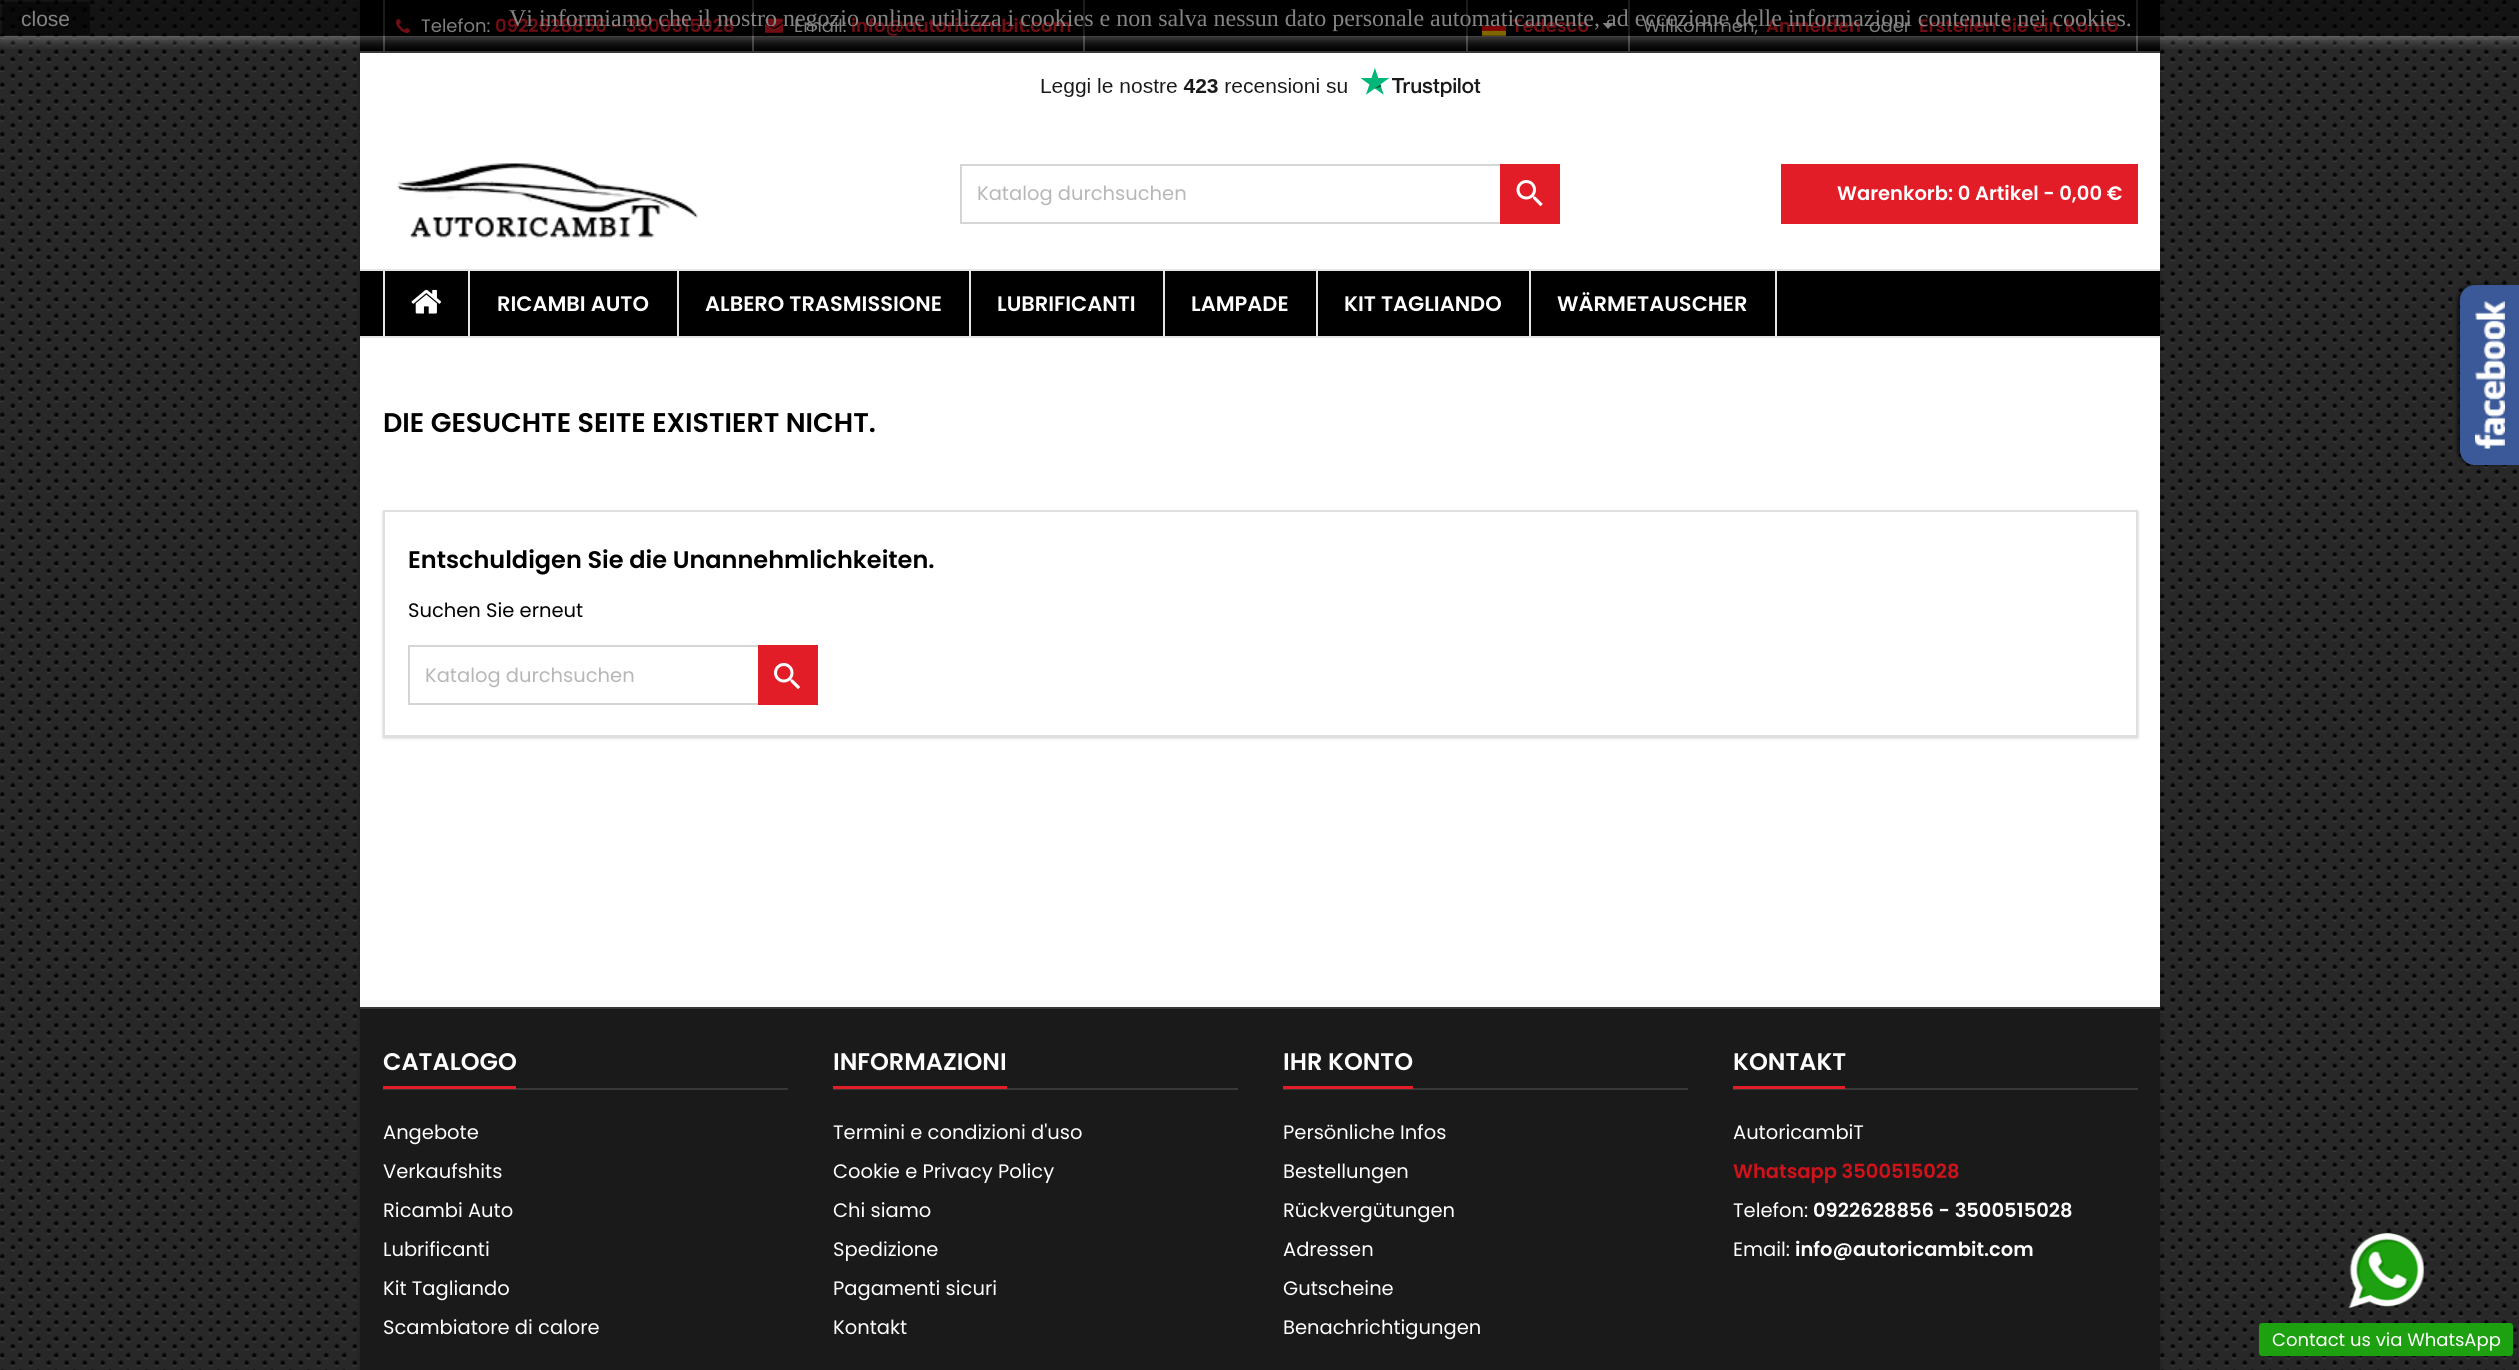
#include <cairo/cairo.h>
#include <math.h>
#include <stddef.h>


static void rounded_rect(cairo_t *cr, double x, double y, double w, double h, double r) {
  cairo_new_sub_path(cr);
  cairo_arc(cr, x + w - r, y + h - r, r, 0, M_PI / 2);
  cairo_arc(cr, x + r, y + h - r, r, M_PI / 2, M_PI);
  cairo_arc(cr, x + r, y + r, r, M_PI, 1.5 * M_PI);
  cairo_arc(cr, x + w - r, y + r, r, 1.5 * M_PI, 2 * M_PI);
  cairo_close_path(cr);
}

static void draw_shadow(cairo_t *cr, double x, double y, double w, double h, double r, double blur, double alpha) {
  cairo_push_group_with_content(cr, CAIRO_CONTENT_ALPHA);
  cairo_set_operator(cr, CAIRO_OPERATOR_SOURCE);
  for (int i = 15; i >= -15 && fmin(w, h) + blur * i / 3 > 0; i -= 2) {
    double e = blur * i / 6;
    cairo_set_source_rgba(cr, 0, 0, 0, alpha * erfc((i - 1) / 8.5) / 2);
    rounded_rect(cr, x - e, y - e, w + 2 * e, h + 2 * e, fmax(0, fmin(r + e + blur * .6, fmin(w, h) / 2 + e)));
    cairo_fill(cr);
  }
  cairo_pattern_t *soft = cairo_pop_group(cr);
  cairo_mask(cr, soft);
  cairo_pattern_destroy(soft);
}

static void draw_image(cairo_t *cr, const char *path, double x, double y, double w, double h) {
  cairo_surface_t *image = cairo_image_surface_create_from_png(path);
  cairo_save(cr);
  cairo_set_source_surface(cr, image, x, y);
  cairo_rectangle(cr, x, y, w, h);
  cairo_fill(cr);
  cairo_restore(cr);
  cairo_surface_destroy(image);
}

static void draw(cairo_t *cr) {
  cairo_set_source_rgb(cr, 40 / 255.0, 40 / 255.0, 40 / 255.0);
  cairo_paint(cr);
  draw_image(cr, "images/1.png", 0, 0, 2518, 1370);
  cairo_set_source_rgb(cr, 0, 0, 0);
  draw_shadow(cr, 360, 0, 1800, 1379, 0, 3, 0.2);
  cairo_set_source_rgb(cr, 1, 1, 1);
  cairo_rectangle(cr, 360, 53, 1800, 954);
  cairo_fill(cr);
  cairo_set_source_rgb(cr, 27 / 255.0, 26 / 255.0, 27 / 255.0);
  cairo_rectangle(cr, 360, 1009, 1800, 361);
  cairo_fill(cr);
  cairo_set_source_rgb(cr, 56 / 255.0, 56 / 255.0, 56 / 255.0);
  cairo_rectangle(cr, 360, 1007, 1800, 2);
  cairo_fill(cr);
  cairo_set_source_rgb(cr, 0, 0, 0);
  cairo_rectangle(cr, 360, 0, 1800, 51);
  cairo_fill(cr);
  cairo_set_source_rgb(cr, 56 / 255.0, 56 / 255.0, 56 / 255.0);
  cairo_rectangle(cr, 360, 51, 1800, 2);
  cairo_fill(cr);
  cairo_rectangle(cr, 383, 0, 2, 51);
  cairo_fill(cr);
  draw_image(cr, "images/3.png", 396, 18, 15, 15);
  cairo_rectangle(cr, 1083, 0, 2, 51);
  cairo_fill(cr);
  cairo_rectangle(cr, 752, 0, 2, 51);
  cairo_fill(cr);
  draw_image(cr, "images/4.png", 765, 18, 18, 15);
  cairo_rectangle(cr, 1466, 0, 2, 51);
  cairo_fill(cr);
  draw_image(cr, "images/5.png", 1482, 25, 24, 11);
  cairo_set_source_rgb(cr, 1, 1, 1);
  cairo_new_path(cr);
  cairo_move_to(cr, 1602.5, 23);
  cairo_line_to(cr, 1613.5, 23);
  cairo_line_to(cr, 1608, 29);
  cairo_close_path(cr);
  cairo_fill(cr);
  cairo_set_source_rgb(cr, 56 / 255.0, 56 / 255.0, 56 / 255.0);
  cairo_rectangle(cr, 2136, 0, 2, 51);
  cairo_fill(cr);
  cairo_rectangle(cr, 1628, 0, 2, 51);
  cairo_fill(cr);
  cairo_save(cr);
  cairo_rectangle(cr, 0, 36, 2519, 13);
  cairo_clip(cr);
  cairo_set_source_rgb(cr, 1, 1, 1);
  draw_shadow(cr, 0, 0, 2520, 36, 0, 7.5, 0.5);
  cairo_restore(cr);
  cairo_rectangle(cr, 383, 1088, 405, 2);
  cairo_fill(cr);
  cairo_set_source_rgb(cr, 227 / 255.0, 29 / 255.0, 39 / 255.0);
  cairo_rectangle(cr, 383, 1086, 133, 3);
  cairo_fill(cr);
  cairo_set_source_rgb(cr, 56 / 255.0, 56 / 255.0, 56 / 255.0);
  cairo_rectangle(cr, 833, 1088, 405, 2);
  cairo_fill(cr);
  cairo_set_source_rgb(cr, 227 / 255.0, 29 / 255.0, 39 / 255.0);
  cairo_rectangle(cr, 833, 1086, 174, 3);
  cairo_fill(cr);
  cairo_set_source_rgb(cr, 56 / 255.0, 56 / 255.0, 56 / 255.0);
  cairo_rectangle(cr, 1283, 1088, 405, 2);
  cairo_fill(cr);
  cairo_set_source_rgb(cr, 227 / 255.0, 29 / 255.0, 39 / 255.0);
  cairo_rectangle(cr, 1283, 1086, 130, 3);
  cairo_fill(cr);
  cairo_set_source_rgb(cr, 56 / 255.0, 56 / 255.0, 56 / 255.0);
  cairo_rectangle(cr, 1733, 1088, 405, 2);
  cairo_fill(cr);
  cairo_set_source_rgb(cr, 227 / 255.0, 29 / 255.0, 39 / 255.0);
  cairo_rectangle(cr, 1733, 1086, 112, 3);
  cairo_fill(cr);
  draw_image(cr, "images/2.png", 2348, 1233, 76, 75);
  cairo_set_source_rgb(cr, 29 / 255.0, 161 / 255.0, 16 / 255.0);
  rounded_rect(cr, 2259, 1323, 254, 33, 3);
  cairo_fill(cr);
  draw_image(cr, "images/6.png", 1041, 68, 440, 29);
  draw_image(cr, "images/7.png", 397, 163, 301, 75);
  cairo_rectangle(cr, 961, 165, 598, 58);
  cairo_set_source_rgb(cr, 214 / 255.0, 212 / 255.0, 212 / 255.0);
  cairo_stroke(cr);
  cairo_set_source_rgb(cr, 227 / 255.0, 29 / 255.0, 39 / 255.0);
  cairo_rectangle(cr, 1500, 164, 60, 60);
  cairo_fill(cr);
  draw_image(cr, "images/8.png", 1516, 180, 27, 27);
  cairo_rectangle(cr, 1781, 164, 357, 60);
  cairo_fill(cr);
  cairo_set_source_rgb(cr, 0, 0, 0);
  cairo_rectangle(cr, 360, 271, 1800, 65);
  cairo_fill(cr);
  cairo_set_source_rgb(cr, 230 / 255.0, 230 / 255.0, 230 / 255.0);
  cairo_rectangle(cr, 360, 269, 1800, 2);
  cairo_fill(cr);
  cairo_rectangle(cr, 360, 336, 1800, 2);
  cairo_fill(cr);
  cairo_rectangle(cr, 383, 270, 2, 66);
  cairo_fill(cr);
  draw_image(cr, "images/9.png", 411, 289, 31, 25);
  cairo_rectangle(cr, 468, 270, 2, 66);
  cairo_fill(cr);
  cairo_rectangle(cr, 677, 270, 2, 66);
  cairo_fill(cr);
  cairo_rectangle(cr, 969, 270, 2, 66);
  cairo_fill(cr);
  cairo_rectangle(cr, 1163, 270, 2, 66);
  cairo_fill(cr);
  cairo_rectangle(cr, 1316, 270, 2, 66);
  cairo_fill(cr);
  cairo_rectangle(cr, 1775, 270, 2, 66);
  cairo_fill(cr);
  cairo_rectangle(cr, 1529, 270, 2, 66);
  cairo_fill(cr);
  cairo_set_source_rgb(cr, 0, 0, 0);
  draw_shadow(cr, 2457, 285, 60, 180, 15, 1.5, 0.5);
  cairo_set_source_rgb(cr, 59 / 255.0, 89 / 255.0, 152 / 255.0);
  cairo_new_path(cr);
  cairo_move_to(cr, 2475, 285);
  cairo_line_to(cr, 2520, 285);
  cairo_line_to(cr, 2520, 465);
  cairo_line_to(cr, 2475, 465);
  cairo_curve_to(cr, 2466.5, 465, 2460, 458.5, 2460, 450);
  cairo_line_to(cr, 2460, 300);
  cairo_curve_to(cr, 2460, 291.5, 2466.5, 285, 2475, 285);
  cairo_close_path(cr);
  cairo_fill(cr);
  draw_image(cr, "images/10.png", 2475, 301, 30, 148);
  cairo_set_source_rgb(cr, 0, 0, 0);
  draw_shadow(cr, 383, 512, 1755, 226, 0, 1.5, 0.2);
  cairo_set_source_rgb(cr, 1, 1, 1);
  cairo_rectangle(cr, 384, 511, 1753, 225);
  cairo_fill_preserve(cr);
  cairo_set_source_rgb(cr, 223 / 255.0, 223 / 255.0, 223 / 255.0);
  cairo_stroke(cr);
  cairo_rectangle(cr, 409, 646, 408, 58);
  cairo_set_source_rgb(cr, 214 / 255.0, 212 / 255.0, 212 / 255.0);
  cairo_stroke(cr);
  cairo_set_source_rgb(cr, 227 / 255.0, 29 / 255.0, 39 / 255.0);
  cairo_rectangle(cr, 758, 645, 60, 60);
  cairo_fill(cr);
  draw_image(cr, "images/11.png", 774, 663, 27, 27);
  cairo_select_font_face(cr, "Poppins SemiBold", CAIRO_FONT_SLANT_NORMAL, CAIRO_FONT_WEIGHT_NORMAL);
  cairo_set_font_size(cr, 24);
  cairo_set_source_rgb(cr, 1, 1, 1);
  cairo_move_to(cr, 383, 1070);
  cairo_show_text(cr, "CATALOGO");
  cairo_select_font_face(cr, "Poppins", CAIRO_FONT_SLANT_NORMAL, CAIRO_FONT_WEIGHT_NORMAL);
  cairo_set_font_size(cr, 19.5);
  cairo_move_to(cr, 383, 1139);
  cairo_show_text(cr, "Angebote");
  cairo_move_to(cr, 383, 1178);
  cairo_show_text(cr, "Verkaufshits");
  cairo_move_to(cr, 383, 1217);
  cairo_show_text(cr, "Ricambi Auto");
  cairo_move_to(cr, 383, 1256);
  cairo_show_text(cr, "Lubrificanti");
  cairo_move_to(cr, 383, 1295);
  cairo_show_text(cr, "Kit Tagliando");
  cairo_move_to(cr, 383, 1334);
  cairo_show_text(cr, "Scambiatore di calore");
  cairo_select_font_face(cr, "Poppins SemiBold", CAIRO_FONT_SLANT_NORMAL, CAIRO_FONT_WEIGHT_NORMAL);
  cairo_set_font_size(cr, 24);
  cairo_move_to(cr, 833, 1070);
  cairo_show_text(cr, "INFORMAZIONI");
  cairo_select_font_face(cr, "Poppins", CAIRO_FONT_SLANT_NORMAL, CAIRO_FONT_WEIGHT_NORMAL);
  cairo_set_font_size(cr, 19.5);
  cairo_move_to(cr, 833, 1139);
  cairo_show_text(cr, "Termini e condizioni d'uso");
  cairo_move_to(cr, 833, 1178);
  cairo_show_text(cr, "Cookie e Privacy Policy");
  cairo_move_to(cr, 833, 1217);
  cairo_show_text(cr, "Chi siamo");
  cairo_move_to(cr, 833, 1256);
  cairo_show_text(cr, "Spedizione");
  cairo_move_to(cr, 833, 1295);
  cairo_show_text(cr, "Pagamenti sicuri");
  cairo_move_to(cr, 833, 1334);
  cairo_show_text(cr, "Kontakt");
  cairo_select_font_face(cr, "Poppins SemiBold", CAIRO_FONT_SLANT_NORMAL, CAIRO_FONT_WEIGHT_NORMAL);
  cairo_set_font_size(cr, 24);
  cairo_move_to(cr, 1283, 1070);
  cairo_show_text(cr, "IHR KONTO");
  cairo_select_font_face(cr, "Poppins", CAIRO_FONT_SLANT_NORMAL, CAIRO_FONT_WEIGHT_NORMAL);
  cairo_set_font_size(cr, 19.5);
  cairo_move_to(cr, 1283, 1139);
  cairo_show_text(cr, "Persönliche Infos");
  cairo_move_to(cr, 1283, 1178);
  cairo_show_text(cr, "Bestellungen");
  cairo_move_to(cr, 1283, 1217);
  cairo_show_text(cr, "Rückvergütungen");
  cairo_move_to(cr, 1283, 1256);
  cairo_show_text(cr, "Adressen");
  cairo_move_to(cr, 1283, 1295);
  cairo_show_text(cr, "Gutscheine");
  cairo_move_to(cr, 1283, 1334);
  cairo_show_text(cr, "Benachrichtigungen");
  cairo_select_font_face(cr, "Poppins SemiBold", CAIRO_FONT_SLANT_NORMAL, CAIRO_FONT_WEIGHT_NORMAL);
  cairo_set_font_size(cr, 24);
  cairo_move_to(cr, 1733, 1070);
  cairo_show_text(cr, "KONTAKT");
  cairo_select_font_face(cr, "Poppins", CAIRO_FONT_SLANT_NORMAL, CAIRO_FONT_WEIGHT_NORMAL);
  cairo_set_font_size(cr, 19.5);
  cairo_move_to(cr, 1733, 1139);
  cairo_show_text(cr, "AutoricambiT");
  cairo_select_font_face(cr, "Poppins SemiBold", CAIRO_FONT_SLANT_NORMAL, CAIRO_FONT_WEIGHT_NORMAL);
  cairo_set_source_rgb(cr, 208 / 255.0, 18 / 255.0, 26 / 255.0);
  cairo_move_to(cr, 1733, 1178);
  cairo_show_text(cr, "Whatsapp 3500515028");
  cairo_select_font_face(cr, "Poppins", CAIRO_FONT_SLANT_NORMAL, CAIRO_FONT_WEIGHT_NORMAL);
  cairo_set_source_rgb(cr, 1, 1, 1);
  cairo_move_to(cr, 1733, 1217);
  cairo_show_text(cr, "Telefon:");
  cairo_select_font_face(cr, "Poppins SemiBold", CAIRO_FONT_SLANT_NORMAL, CAIRO_FONT_WEIGHT_NORMAL);
  cairo_move_to(cr, 1813, 1217);
  cairo_show_text(cr, "0922628856 - 3500515028");
  cairo_select_font_face(cr, "Poppins", CAIRO_FONT_SLANT_NORMAL, CAIRO_FONT_WEIGHT_NORMAL);
  cairo_move_to(cr, 1733, 1256);
  cairo_show_text(cr, "Email:");
  cairo_select_font_face(cr, "Poppins SemiBold", CAIRO_FONT_SLANT_NORMAL, CAIRO_FONT_WEIGHT_NORMAL);
  cairo_move_to(cr, 1795, 1256);
  cairo_show_text(cr, "info@autoricambit.com");
  cairo_select_font_face(cr, "Poppins", CAIRO_FONT_SLANT_NORMAL, CAIRO_FONT_WEIGHT_NORMAL);
  cairo_set_font_size(cr, 18);
  cairo_move_to(cr, 2272, 1346);
  cairo_show_text(cr, "Contact us via WhatsApp");
  cairo_move_to(cr, 421, 32);
  cairo_show_text(cr, "Telefon:");
  cairo_select_font_face(cr, "Poppins SemiBold", CAIRO_FONT_SLANT_NORMAL, CAIRO_FONT_WEIGHT_NORMAL);
  cairo_set_source_rgb(cr, 227 / 255.0, 29 / 255.0, 39 / 255.0);
  cairo_move_to(cr, 495, 32);
  cairo_show_text(cr, "0922628856 - 3500515028");
  cairo_select_font_face(cr, "Poppins", CAIRO_FONT_SLANT_NORMAL, CAIRO_FONT_WEIGHT_NORMAL);
  cairo_set_source_rgb(cr, 1, 1, 1);
  cairo_move_to(cr, 794, 32);
  cairo_show_text(cr, "Email:");
  cairo_select_font_face(cr, "Poppins SemiBold", CAIRO_FONT_SLANT_NORMAL, CAIRO_FONT_WEIGHT_NORMAL);
  cairo_set_source_rgb(cr, 227 / 255.0, 29 / 255.0, 39 / 255.0);
  cairo_move_to(cr, 851, 32);
  cairo_show_text(cr, "info@autoricambit.com");
  cairo_move_to(cr, 1512, 32);
  cairo_show_text(cr, "Tedesco");
  cairo_select_font_face(cr, "Poppins", CAIRO_FONT_SLANT_NORMAL, CAIRO_FONT_WEIGHT_NORMAL);
  cairo_set_source_rgb(cr, 1, 1, 1);
  cairo_move_to(cr, 1643, 32);
  cairo_show_text(cr, "Willkommen,");
  cairo_select_font_face(cr, "Poppins SemiBold", CAIRO_FONT_SLANT_NORMAL, CAIRO_FONT_WEIGHT_NORMAL);
  cairo_set_source_rgb(cr, 227 / 255.0, 29 / 255.0, 39 / 255.0);
  cairo_move_to(cr, 1766, 32);
  cairo_show_text(cr, "Anmelden");
  cairo_select_font_face(cr, "Poppins", CAIRO_FONT_SLANT_NORMAL, CAIRO_FONT_WEIGHT_NORMAL);
  cairo_set_source_rgb(cr, 1, 1, 1);
  cairo_move_to(cr, 1869, 32);
  cairo_show_text(cr, "oder");
  cairo_select_font_face(cr, "Poppins SemiBold", CAIRO_FONT_SLANT_NORMAL, CAIRO_FONT_WEIGHT_NORMAL);
  cairo_set_source_rgb(cr, 227 / 255.0, 29 / 255.0, 39 / 255.0);
  cairo_move_to(cr, 1919, 32);
  cairo_show_text(cr, "Erstellen Sie ein Konto");
  cairo_set_source_rgba(cr, 0, 0, 0, 0.5);
  cairo_rectangle(cr, 0, 0, 2519, 36);
  cairo_fill(cr);
  cairo_select_font_face(cr, "Liberation Serif", CAIRO_FONT_SLANT_NORMAL, CAIRO_FONT_WEIGHT_NORMAL);
  cairo_set_font_size(cr, 24);
  cairo_set_source_rgb(cr, 132 / 255.0, 132 / 255.0, 132 / 255.0);
  cairo_move_to(cr, 509, 26);
  cairo_show_text(cr, "Vi informiamo che il nostro negozio online utilizza i cookies e non salva nessun dato personale automaticamente, ad eccezione delle informazioni contenute nei cookies.");
  cairo_set_source_rgba(cr, 0, 0, 0, 0.5);
  rounded_rect(cr, 2, 2, 88, 33, 3);
  cairo_fill(cr);
  cairo_select_font_face(cr, "Liberation Sans", CAIRO_FONT_SLANT_NORMAL, CAIRO_FONT_WEIGHT_NORMAL);
  cairo_set_font_size(cr, 21);
  cairo_set_source_rgb(cr, 132 / 255.0, 132 / 255.0, 132 / 255.0);
  cairo_move_to(cr, 21, 26);
  cairo_show_text(cr, "close");
  cairo_select_font_face(cr, "Poppins", CAIRO_FONT_SLANT_NORMAL, CAIRO_FONT_WEIGHT_NORMAL);
  cairo_set_font_size(cr, 19.5);
  cairo_set_source_rgb(cr, 183 / 255.0, 183 / 255.0, 183 / 255.0);
  cairo_move_to(cr, 977, 200);
  cairo_show_text(cr, "Katalog durchsuchen");
  cairo_select_font_face(cr, "Poppins SemiBold", CAIRO_FONT_SLANT_NORMAL, CAIRO_FONT_WEIGHT_NORMAL);
  cairo_set_source_rgb(cr, 1, 1, 1);
  cairo_move_to(cr, 1837, 200);
  cairo_show_text(cr, "Warenkorb: 0 Artikel - 0,00 €");
  cairo_set_font_size(cr, 21);
  cairo_move_to(cr, 497, 311);
  cairo_show_text(cr, "RICAMBI AUTO");
  cairo_move_to(cr, 705, 311);
  cairo_show_text(cr, "ALBERO TRASMISSIONE");
  cairo_move_to(cr, 997, 311);
  cairo_show_text(cr, "LUBRIFICANTI");
  cairo_move_to(cr, 1191, 311);
  cairo_show_text(cr, "LAMPADE");
  cairo_move_to(cr, 1344, 311);
  cairo_show_text(cr, "KIT TAGLIANDO");
  cairo_move_to(cr, 1557, 311);
  cairo_show_text(cr, "WÄRMETAUSCHER");
  cairo_set_font_size(cr, 27);
  cairo_set_source_rgb(cr, 0, 0, 0);
  cairo_move_to(cr, 383, 432);
  cairo_show_text(cr, "DIE GESUCHTE SEITE EXISTIERT NICHT.");
  cairo_set_font_size(cr, 24);
  cairo_move_to(cr, 408, 568);
  cairo_show_text(cr, "Entschuldigen Sie die Unannehmlichkeiten.");
  cairo_select_font_face(cr, "Poppins", CAIRO_FONT_SLANT_NORMAL, CAIRO_FONT_WEIGHT_NORMAL);
  cairo_set_font_size(cr, 19.5);
  cairo_move_to(cr, 408, 617);
  cairo_show_text(cr, "Suchen Sie erneut");
  cairo_set_source_rgb(cr, 183 / 255.0, 183 / 255.0, 183 / 255.0);
  cairo_move_to(cr, 425, 682);
  cairo_show_text(cr, "Katalog durchsuchen");
}

int main(void) {
  cairo_surface_t *surface = cairo_image_surface_create(CAIRO_FORMAT_RGB24, 2519, 1370);
  cairo_t *cr = cairo_create(surface);
  cairo_font_options_t *options = cairo_font_options_create();
  cairo_font_options_set_hint_metrics(options, CAIRO_HINT_METRICS_OFF);
  cairo_font_options_set_hint_style(options, CAIRO_HINT_STYLE_NONE);
  cairo_set_font_options(cr, options);
  cairo_set_miter_limit(cr, 4);
  draw(cr);
  cairo_surface_write_to_png(surface, "out.png");
  cairo_font_options_destroy(options);
  cairo_destroy(cr);
  cairo_surface_destroy(surface);
  return 0;
}
